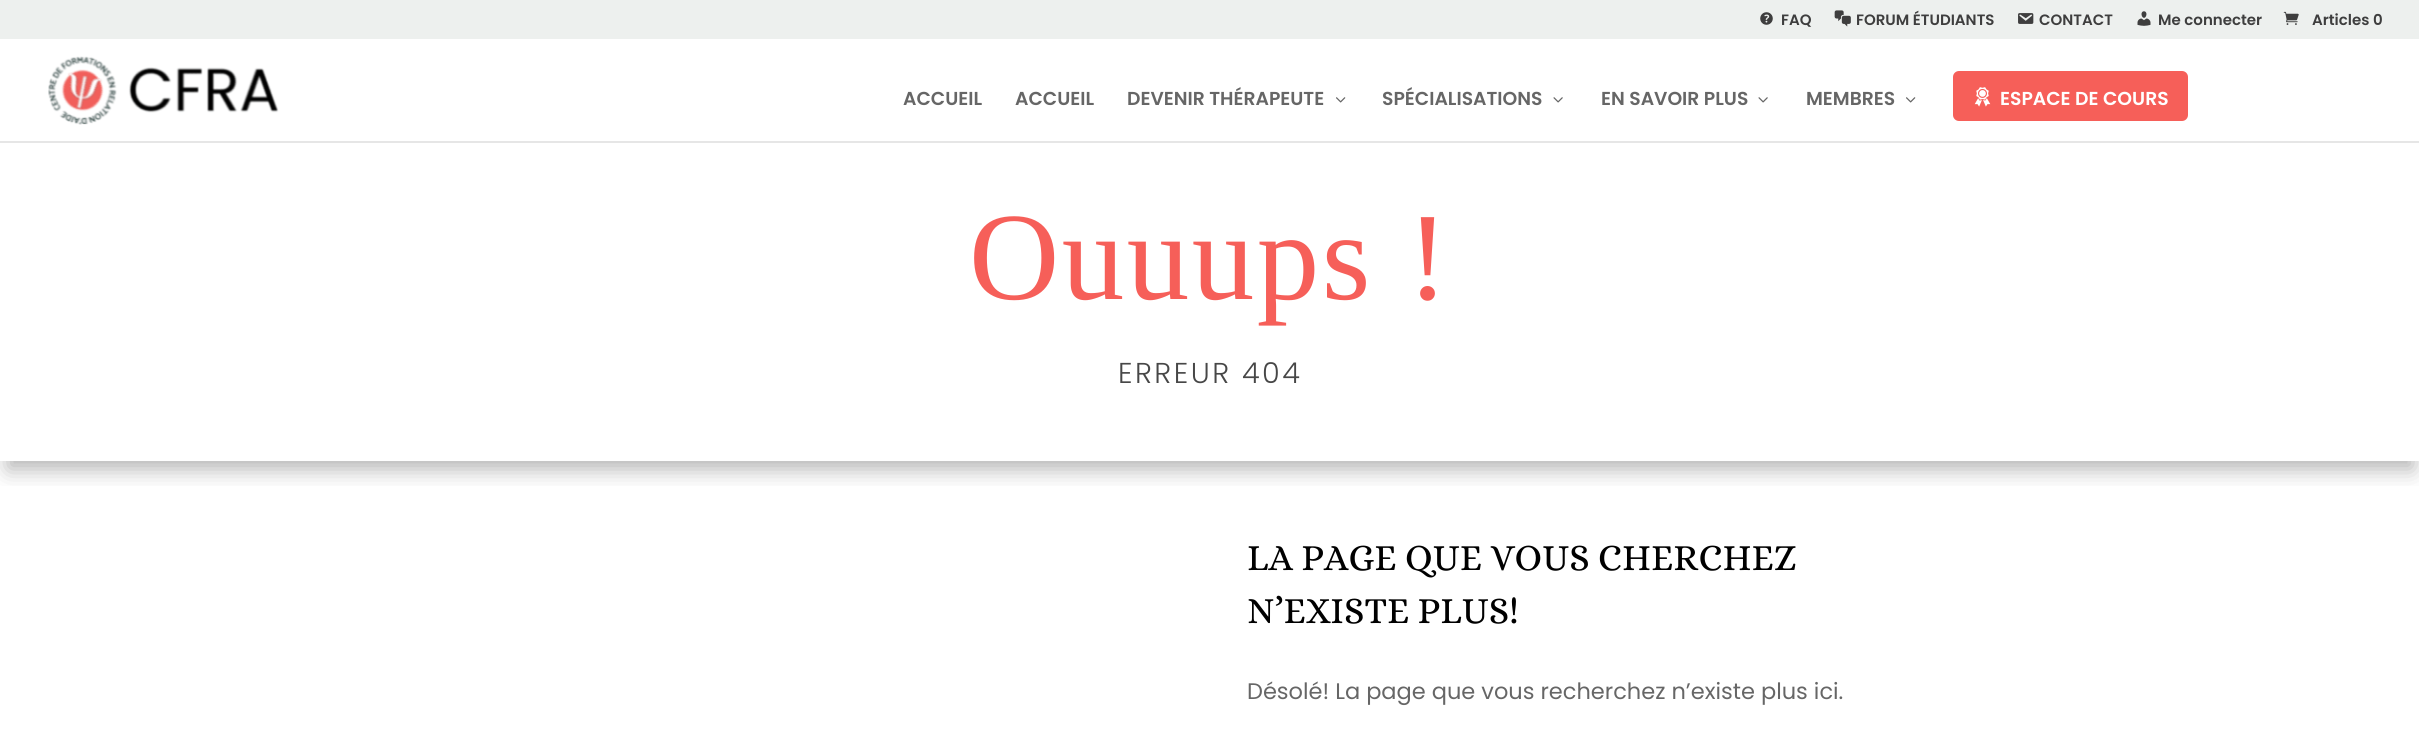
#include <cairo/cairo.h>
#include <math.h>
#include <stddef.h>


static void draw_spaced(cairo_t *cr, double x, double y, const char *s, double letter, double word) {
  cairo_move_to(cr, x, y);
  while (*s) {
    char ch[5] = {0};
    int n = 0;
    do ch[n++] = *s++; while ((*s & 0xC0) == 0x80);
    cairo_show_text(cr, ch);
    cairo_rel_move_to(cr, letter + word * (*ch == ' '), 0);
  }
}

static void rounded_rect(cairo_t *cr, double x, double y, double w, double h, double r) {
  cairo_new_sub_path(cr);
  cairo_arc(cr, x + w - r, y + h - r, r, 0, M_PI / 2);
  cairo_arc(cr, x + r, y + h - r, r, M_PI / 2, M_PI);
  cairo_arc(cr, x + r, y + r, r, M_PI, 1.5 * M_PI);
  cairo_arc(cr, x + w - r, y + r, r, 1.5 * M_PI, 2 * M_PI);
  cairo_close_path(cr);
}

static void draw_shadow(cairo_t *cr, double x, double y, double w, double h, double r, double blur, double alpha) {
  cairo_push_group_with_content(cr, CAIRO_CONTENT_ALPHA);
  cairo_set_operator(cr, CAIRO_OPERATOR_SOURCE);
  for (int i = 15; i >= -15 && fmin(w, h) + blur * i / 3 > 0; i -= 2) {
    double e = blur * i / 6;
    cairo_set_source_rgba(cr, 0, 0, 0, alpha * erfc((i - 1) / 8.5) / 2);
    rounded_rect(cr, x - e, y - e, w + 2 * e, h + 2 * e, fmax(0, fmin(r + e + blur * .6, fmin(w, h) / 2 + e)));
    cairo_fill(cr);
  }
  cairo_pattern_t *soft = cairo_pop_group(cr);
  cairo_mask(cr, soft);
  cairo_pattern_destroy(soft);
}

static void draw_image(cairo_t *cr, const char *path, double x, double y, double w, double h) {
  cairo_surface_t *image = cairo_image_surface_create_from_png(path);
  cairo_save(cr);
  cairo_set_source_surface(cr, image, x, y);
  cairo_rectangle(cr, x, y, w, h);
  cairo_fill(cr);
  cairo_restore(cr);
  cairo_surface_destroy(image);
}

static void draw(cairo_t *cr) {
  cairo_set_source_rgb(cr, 1, 1, 1);
  cairo_paint(cr);
  cairo_set_source_rgb(cr, 237 / 255.0, 240 / 255.0, 238 / 255.0);
  cairo_rectangle(cr, 0, 0, 2419, 39);
  cairo_fill(cr);
  draw_image(cr, "images/1.png", 1760, 12, 13, 13);
  draw_image(cr, "images/2.png", 1834, 10, 17, 17);
  draw_image(cr, "images/3.png", 2018, 13, 16, 11);
  draw_image(cr, "images/4.png", 2137, 11, 14, 15);
  draw_image(cr, "images/5.png", 2283, 11, 16, 14);
  cairo_save(cr);
  cairo_rectangle(cr, 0, 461, 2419, 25);
  cairo_clip(cr);
  cairo_set_source_rgb(cr, 0, 0, 0);
  draw_shadow(cr, 8, 161, 2405, 308, 0, 11, 0.3);
  cairo_restore(cr);
  cairo_set_source_rgb(cr, 230 / 255.0, 230 / 255.0, 230 / 255.0);
  cairo_rectangle(cr, 0, 141, 2419, 2);
  cairo_fill(cr);
  draw_image(cr, "images/6.png", 48, 56, 231, 69);
  draw_image(cr, "images/7.png", 1336, 97, 10, 6);
  draw_image(cr, "images/8.png", 1553, 97, 10, 6);
  draw_image(cr, "images/8.png", 1758, 97, 10, 6);
  draw_image(cr, "images/7.png", 1906, 97, 10, 6);
  cairo_set_source_rgb(cr, 246 / 255.0, 95 / 255.0, 89 / 255.0);
  rounded_rect(cr, 1953, 71, 235, 50, 6);
  cairo_fill(cr);
  draw_image(cr, "images/9.png", 1974, 87, 17, 20);
  cairo_select_font_face(cr, "Poppins SemiBold", CAIRO_FONT_SLANT_NORMAL, CAIRO_FONT_WEIGHT_NORMAL);
  cairo_set_font_size(cr, 15);
  cairo_set_source_rgb(cr, 62 / 255.0, 62 / 255.0, 62 / 255.0);
  cairo_move_to(cr, 1781, 25);
  cairo_show_text(cr, "FAQ");
  cairo_move_to(cr, 1856, 25);
  cairo_show_text(cr, "FORUM ÉTUDIANTS");
  cairo_move_to(cr, 2039, 25);
  cairo_show_text(cr, "CONTACT");
  cairo_move_to(cr, 2158, 25);
  cairo_show_text(cr, "Me connecter");
  cairo_move_to(cr, 2312, 25);
  cairo_show_text(cr, "Articles 0");
  cairo_set_font_size(cr, 18.75);
  cairo_set_source_rgb(cr, 102 / 255.0, 102 / 255.0, 102 / 255.0);
  cairo_move_to(cr, 903, 105);
  cairo_show_text(cr, "ACCUEIL");
  cairo_move_to(cr, 1015, 105);
  cairo_show_text(cr, "ACCUEIL");
  cairo_move_to(cr, 1127, 105);
  cairo_show_text(cr, "DEVENIR THÉRAPEUTE");
  cairo_move_to(cr, 1382, 105);
  cairo_show_text(cr, "SPÉCIALISATIONS");
  cairo_move_to(cr, 1601, 105);
  cairo_show_text(cr, "EN SAVOIR PLUS");
  cairo_move_to(cr, 1806, 105);
  cairo_show_text(cr, "MEMBRES");
  cairo_set_source_rgb(cr, 1, 1, 1);
  cairo_move_to(cr, 2000, 105);
  cairo_show_text(cr, "ESPACE DE COURS");
  cairo_select_font_face(cr, "Liberation Serif", CAIRO_FONT_SLANT_NORMAL, CAIRO_FONT_WEIGHT_NORMAL);
  cairo_set_font_size(cr, 125);
  cairo_set_source_rgb(cr, 246 / 255.0, 95 / 255.0, 89 / 255.0);
  draw_spaced(cr, 969, 299, "Ouuups !", 2.5, 0);
  cairo_select_font_face(cr, "Poppins Light", CAIRO_FONT_SLANT_NORMAL, CAIRO_FONT_WEIGHT_NORMAL);
  cairo_set_font_size(cr, 28.75);
  cairo_set_source_rgb(cr, 71 / 255.0, 71 / 255.0, 71 / 255.0);
  draw_spaced(cr, 1118, 383, "ERREUR 404", 2.5, 0);
  cairo_select_font_face(cr, "Alice", CAIRO_FONT_SLANT_NORMAL, CAIRO_FONT_WEIGHT_NORMAL);
  cairo_set_font_size(cr, 37.5);
  cairo_set_source_rgb(cr, 0, 0, 0);
  cairo_move_to(cr, 1247, 570);
  cairo_show_text(cr, "LA PAGE QUE VOUS CHERCHEZ");
  cairo_move_to(cr, 1247, 623);
  cairo_show_text(cr, "N’EXISTE PLUS!");
  cairo_select_font_face(cr, "Poppins", CAIRO_FONT_SLANT_NORMAL, CAIRO_FONT_WEIGHT_NORMAL);
  cairo_set_font_size(cr, 22.5);
  cairo_set_source_rgb(cr, 102 / 255.0, 102 / 255.0, 102 / 255.0);
  cairo_move_to(cr, 1247, 699);
  cairo_show_text(cr, "Désolé! La page que vous recherchez n’existe plus ici.");
}

int main(void) {
  cairo_surface_t *surface = cairo_image_surface_create(CAIRO_FORMAT_RGB24, 2419, 737);
  cairo_t *cr = cairo_create(surface);
  cairo_font_options_t *options = cairo_font_options_create();
  cairo_font_options_set_hint_metrics(options, CAIRO_HINT_METRICS_OFF);
  cairo_font_options_set_hint_style(options, CAIRO_HINT_STYLE_NONE);
  cairo_set_font_options(cr, options);
  cairo_set_miter_limit(cr, 4);
  draw(cr);
  cairo_surface_write_to_png(surface, "out.png");
  cairo_font_options_destroy(options);
  cairo_destroy(cr);
  cairo_surface_destroy(surface);
  return 0;
}
